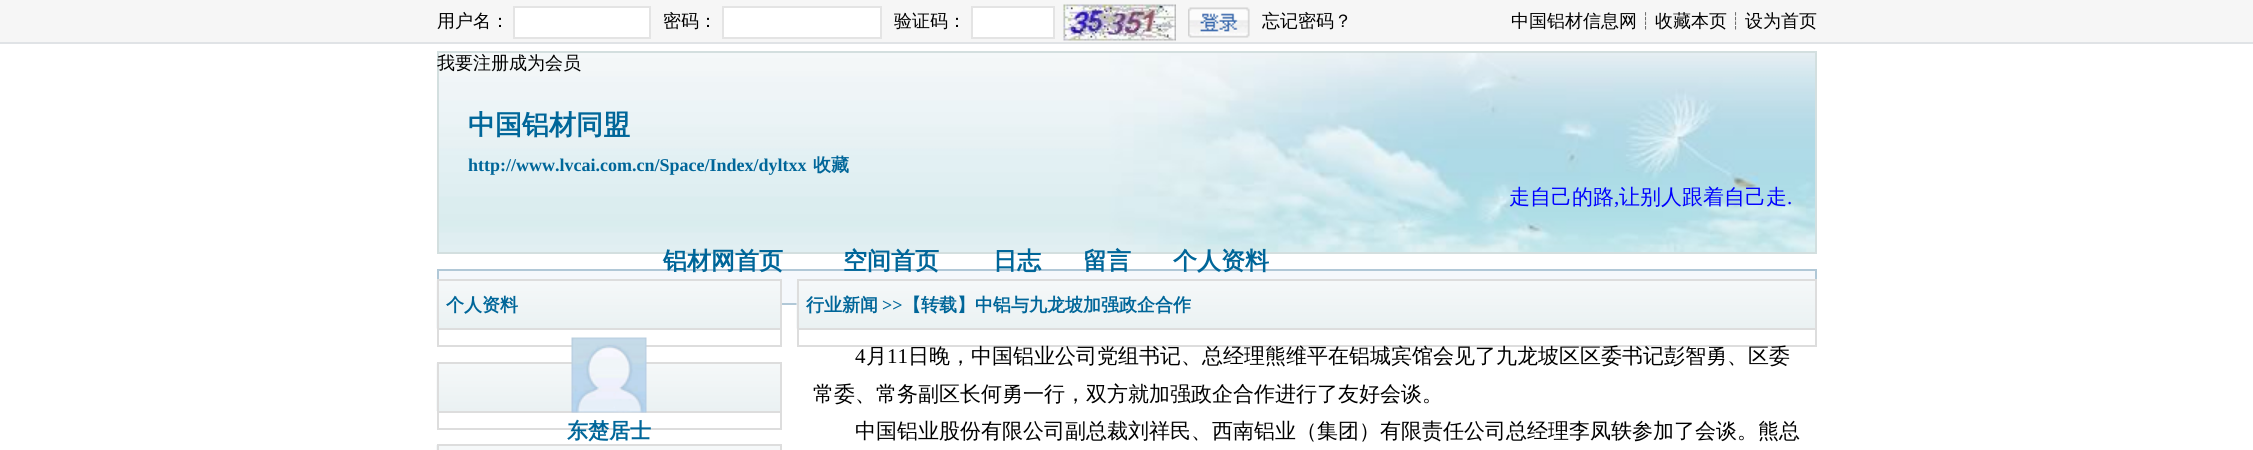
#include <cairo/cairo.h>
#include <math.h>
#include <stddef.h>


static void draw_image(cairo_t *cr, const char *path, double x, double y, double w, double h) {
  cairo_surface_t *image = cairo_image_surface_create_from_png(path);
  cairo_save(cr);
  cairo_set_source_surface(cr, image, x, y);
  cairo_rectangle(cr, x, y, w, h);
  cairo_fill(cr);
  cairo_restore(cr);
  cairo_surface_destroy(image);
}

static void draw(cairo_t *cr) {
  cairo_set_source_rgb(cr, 1, 1, 1);
  cairo_paint(cr);
  cairo_set_source_rgb(cr, 246 / 255.0, 246 / 255.0, 246 / 255.0);
  cairo_rectangle(cr, 0, 0, 2253, 42);
  cairo_fill(cr);
  cairo_set_source_rgb(cr, 224 / 255.0, 227 / 255.0, 230 / 255.0);
  cairo_rectangle(cr, 0, 42, 2253, 2);
  cairo_fill(cr);
  cairo_set_source_rgb(cr, 1, 1, 1);
  cairo_rectangle(cr, 514, 7, 136, 31);
  cairo_fill_preserve(cr);
  cairo_set_source_rgb(cr, 228 / 255.0, 228 / 255.0, 228 / 255.0);
  cairo_stroke(cr);
  cairo_set_source_rgb(cr, 1, 1, 1);
  cairo_rectangle(cr, 723, 7, 158, 31);
  cairo_fill_preserve(cr);
  cairo_set_source_rgb(cr, 228 / 255.0, 228 / 255.0, 228 / 255.0);
  cairo_stroke(cr);
  cairo_set_source_rgb(cr, 1, 1, 1);
  cairo_rectangle(cr, 972, 7, 82, 31);
  cairo_fill_preserve(cr);
  cairo_set_source_rgb(cr, 228 / 255.0, 228 / 255.0, 228 / 255.0);
  cairo_stroke(cr);
  draw_image(cr, "images/1.png", 1063, 4, 113, 37);
  draw_image(cr, "images/2.png", 1188, 7, 62, 31);
  draw_image(cr, "images/3.png", 439, 53, 1376, 199);
  cairo_rectangle(cr, 438, 52, 1378, 201);
  cairo_set_source_rgb(cr, 211 / 255.0, 223 / 255.0, 223 / 255.0);
  cairo_stroke(cr);
  cairo_set_source_rgb(cr, 245 / 255.0, 248 / 255.0, 252 / 255.0);
  cairo_rectangle(cr, 438, 270, 1378, 34);
  cairo_fill_preserve(cr);
  cairo_set_source_rgb(cr, 177 / 255.0, 200 / 255.0, 215 / 255.0);
  cairo_stroke(cr);
  draw_image(cr, "images/4.png", 436, 280, 344, 49);
  cairo_rectangle(cr, 438, 280, 343, 49);
  cairo_set_source_rgb(cr, 221 / 255.0, 221 / 255.0, 221 / 255.0);
  cairo_stroke(cr);
  draw_image(cr, "images/5.png", 436, 363, 344, 48);
  cairo_rectangle(cr, 438, 363, 343, 49);
  cairo_stroke(cr);
  cairo_rectangle(cr, 780, 413, 2, 16);
  cairo_fill(cr);
  cairo_rectangle(cr, 437, 428, 345, 2);
  cairo_fill(cr);
  cairo_rectangle(cr, 437, 413, 2, 16);
  cairo_fill(cr);
  cairo_rectangle(cr, 780, 330, 2, 17);
  cairo_fill(cr);
  cairo_rectangle(cr, 437, 345, 345, 2);
  cairo_fill(cr);
  cairo_rectangle(cr, 437, 330, 2, 17);
  cairo_fill(cr);
  draw_image(cr, "images/6.png", 571, 337, 76, 76);
  cairo_set_source_rgb(cr, 245 / 255.0, 248 / 255.0, 249 / 255.0);
  cairo_rectangle(cr, 436, 445, 346, 5);
  cairo_fill(cr);
  cairo_rectangle(cr, 438, 445, 343, 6);
  cairo_set_source_rgb(cr, 221 / 255.0, 221 / 255.0, 221 / 255.0);
  cairo_stroke(cr);
  draw_image(cr, "images/7.png", 796, 280, 1019, 49);
  cairo_rectangle(cr, 798, 280, 1018, 49);
  cairo_stroke(cr);
  cairo_rectangle(cr, 1815, 330, 2, 17);
  cairo_fill(cr);
  cairo_rectangle(cr, 797, 345, 1020, 2);
  cairo_fill(cr);
  cairo_rectangle(cr, 797, 330, 2, 17);
  cairo_fill(cr);
  cairo_select_font_face(cr, "WenQuanYi Zen Hei Medium", CAIRO_FONT_SLANT_NORMAL, CAIRO_FONT_WEIGHT_NORMAL);
  cairo_set_font_size(cr, 18);
  cairo_set_source_rgb(cr, 0, 0, 0);
  cairo_move_to(cr, 437, 27);
  cairo_show_text(cr, "用户名：");
  cairo_move_to(cr, 663, 27);
  cairo_show_text(cr, "密码：");
  cairo_move_to(cr, 894, 27);
  cairo_show_text(cr, "验证码：");
  cairo_move_to(cr, 1262, 27);
  cairo_show_text(cr, "忘记密码？");
  cairo_move_to(cr, 437, 69);
  cairo_show_text(cr, "我要注册成为会员");
  cairo_move_to(cr, 1511, 27);
  cairo_show_text(cr, "中国铝材信息网┊收藏本页┊设为首页");
  cairo_select_font_face(cr, "WenQuanYi Zen Hei", CAIRO_FONT_SLANT_NORMAL, CAIRO_FONT_WEIGHT_BOLD);
  cairo_set_font_size(cr, 27);
  cairo_set_source_rgb(cr, 0, 102 / 255.0, 153 / 255.0);
  cairo_move_to(cr, 468, 134);
  cairo_show_text(cr, "中国铝材同盟");
  cairo_select_font_face(cr, "Liberation Serif", CAIRO_FONT_SLANT_NORMAL, CAIRO_FONT_WEIGHT_BOLD);
  cairo_set_font_size(cr, 18);
  cairo_move_to(cr, 468, 171);
  cairo_show_text(cr, "http://www.lvcai.com.cn/Space/Index/dyltxx");
  cairo_select_font_face(cr, "WenQuanYi Zen Hei", CAIRO_FONT_SLANT_NORMAL, CAIRO_FONT_WEIGHT_BOLD);
  cairo_move_to(cr, 813, 171);
  cairo_show_text(cr, "收藏");
  cairo_select_font_face(cr, "WenQuanYi Zen Hei Medium", CAIRO_FONT_SLANT_NORMAL, CAIRO_FONT_WEIGHT_NORMAL);
  cairo_set_font_size(cr, 21);
  cairo_set_source_rgb(cr, 0, 0, 1);
  cairo_move_to(cr, 1509, 204);
  cairo_show_text(cr, "走自己的路");
  cairo_select_font_face(cr, "Liberation Serif", CAIRO_FONT_SLANT_NORMAL, CAIRO_FONT_WEIGHT_NORMAL);
  cairo_move_to(cr, 1614, 204);
  cairo_show_text(cr, ",");
  cairo_select_font_face(cr, "WenQuanYi Zen Hei Medium", CAIRO_FONT_SLANT_NORMAL, CAIRO_FONT_WEIGHT_NORMAL);
  cairo_move_to(cr, 1619, 204);
  cairo_show_text(cr, "让别人跟着自己走");
  cairo_select_font_face(cr, "Liberation Serif", CAIRO_FONT_SLANT_NORMAL, CAIRO_FONT_WEIGHT_NORMAL);
  cairo_move_to(cr, 1787, 204);
  cairo_show_text(cr, ".");
  cairo_select_font_face(cr, "WenQuanYi Zen Hei", CAIRO_FONT_SLANT_NORMAL, CAIRO_FONT_WEIGHT_BOLD);
  cairo_set_font_size(cr, 24);
  cairo_set_source_rgb(cr, 0, 102 / 255.0, 153 / 255.0);
  cairo_move_to(cr, 663, 269);
  cairo_show_text(cr, "铝材网首页");
  cairo_move_to(cr, 843, 269);
  cairo_show_text(cr, "空间首页");
  cairo_move_to(cr, 993, 269);
  cairo_show_text(cr, "日志");
  cairo_move_to(cr, 1083, 269);
  cairo_show_text(cr, "留言");
  cairo_move_to(cr, 1173, 269);
  cairo_show_text(cr, "个人资料");
  cairo_set_font_size(cr, 18);
  cairo_move_to(cr, 446, 311);
  cairo_show_text(cr, "个人资料");
  cairo_set_font_size(cr, 21);
  cairo_move_to(cr, 567, 438);
  cairo_show_text(cr, "东楚居士");
  cairo_set_font_size(cr, 18);
  cairo_move_to(cr, 806, 311);
  cairo_show_text(cr, "行业新闻");
  cairo_select_font_face(cr, "Liberation Serif", CAIRO_FONT_SLANT_NORMAL, CAIRO_FONT_WEIGHT_BOLD);
  cairo_move_to(cr, 882, 311);
  cairo_show_text(cr, ">>");
  cairo_select_font_face(cr, "WenQuanYi Zen Hei", CAIRO_FONT_SLANT_NORMAL, CAIRO_FONT_WEIGHT_BOLD);
  cairo_move_to(cr, 903, 311);
  cairo_show_text(cr, "【转载】中铝与九龙坡加强政企合作");
  cairo_select_font_face(cr, "Liberation Serif", CAIRO_FONT_SLANT_NORMAL, CAIRO_FONT_WEIGHT_NORMAL);
  cairo_set_font_size(cr, 21);
  cairo_set_source_rgb(cr, 0, 0, 0);
  cairo_move_to(cr, 855, 363);
  cairo_show_text(cr, "4");
  cairo_select_font_face(cr, "WenQuanYi Zen Hei Medium", CAIRO_FONT_SLANT_NORMAL, CAIRO_FONT_WEIGHT_NORMAL);
  cairo_move_to(cr, 866, 363);
  cairo_show_text(cr, "月");
  cairo_select_font_face(cr, "Liberation Serif", CAIRO_FONT_SLANT_NORMAL, CAIRO_FONT_WEIGHT_NORMAL);
  cairo_move_to(cr, 887, 363);
  cairo_show_text(cr, "11");
  cairo_select_font_face(cr, "WenQuanYi Zen Hei Medium", CAIRO_FONT_SLANT_NORMAL, CAIRO_FONT_WEIGHT_NORMAL);
  cairo_move_to(cr, 908, 363);
  cairo_show_text(cr, "日晚，中国铝业公司党组书记、总经理熊维平在铝城宾馆会见了九龙坡区区委书记彭智勇、区委");
  cairo_move_to(cr, 813, 401);
  cairo_show_text(cr, "常委、常务副区长何勇一行，双方就加强政企合作进行了友好会谈。");
  cairo_move_to(cr, 855, 438);
  cairo_show_text(cr, "中国铝业股份有限公司副总裁刘祥民、西南铝业（集团）有限责任公司总经理李凤轶参加了会谈。熊总");
}

int main(void) {
  cairo_surface_t *surface = cairo_image_surface_create(CAIRO_FORMAT_RGB24, 2253, 450);
  cairo_t *cr = cairo_create(surface);
  cairo_font_options_t *options = cairo_font_options_create();
  cairo_font_options_set_hint_metrics(options, CAIRO_HINT_METRICS_OFF);
  cairo_font_options_set_hint_style(options, CAIRO_HINT_STYLE_NONE);
  cairo_set_font_options(cr, options);
  cairo_set_miter_limit(cr, 4);
  draw(cr);
  cairo_surface_write_to_png(surface, "out.png");
  cairo_font_options_destroy(options);
  cairo_destroy(cr);
  cairo_surface_destroy(surface);
  return 0;
}
